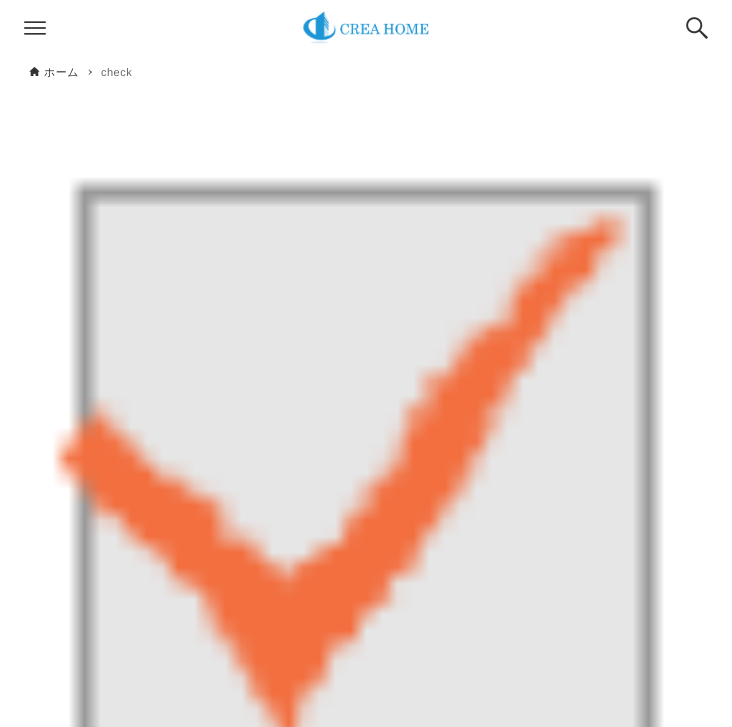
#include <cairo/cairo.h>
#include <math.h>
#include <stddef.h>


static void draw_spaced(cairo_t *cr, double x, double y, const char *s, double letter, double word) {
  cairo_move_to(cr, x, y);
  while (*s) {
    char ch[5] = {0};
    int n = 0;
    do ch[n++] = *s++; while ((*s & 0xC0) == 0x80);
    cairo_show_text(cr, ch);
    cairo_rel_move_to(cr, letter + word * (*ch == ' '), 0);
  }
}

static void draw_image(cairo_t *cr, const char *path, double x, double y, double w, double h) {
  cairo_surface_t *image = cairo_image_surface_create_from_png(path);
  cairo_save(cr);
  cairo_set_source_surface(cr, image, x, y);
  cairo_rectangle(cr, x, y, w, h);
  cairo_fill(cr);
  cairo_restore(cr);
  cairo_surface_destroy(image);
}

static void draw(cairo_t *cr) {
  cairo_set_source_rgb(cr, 1, 1, 1);
  cairo_paint(cr);
  draw_image(cr, "images/1.png", 24, 21, 22, 14);
  draw_image(cr, "images/2.png", 302, 11, 127, 33);
  draw_image(cr, "images/3.png", 686, 17, 22, 22);
  draw_image(cr, "images/4.png", 29, 67, 11, 9);
  cairo_set_source_rgb(cr, 102 / 255.0, 102 / 255.0, 102 / 255.0);
  cairo_new_path(cr);
  cairo_move_to(cr, 89, 69.5);
  cairo_line_to(cr, 92, 72);
  cairo_line_to(cr, 91, 73);
  cairo_line_to(cr, 88.5, 70);
  cairo_close_path(cr);
  cairo_fill(cr);
  cairo_new_path(cr);
  cairo_move_to(cr, 91, 71.5);
  cairo_line_to(cr, 92, 72);
  cairo_line_to(cr, 89, 75);
  cairo_line_to(cr, 88.5, 74.5);
  cairo_close_path(cr);
  cairo_fill(cr);
  draw_image(cr, "images/5.png", 53, 177, 611, 550);
  cairo_select_font_face(cr, "WenQuanYi Zen Hei Medium", CAIRO_FONT_SLANT_NORMAL, CAIRO_FONT_WEIGHT_NORMAL);
  cairo_set_font_size(cr, 11);
  cairo_set_source_rgb(cr, 51 / 255.0, 51 / 255.0, 51 / 255.0);
  draw_spaced(cr, 44, 76, "ホーム", 0.5, 0);
  cairo_select_font_face(cr, "Liberation Sans", CAIRO_FONT_SLANT_NORMAL, CAIRO_FONT_WEIGHT_NORMAL);
  cairo_set_source_rgb(cr, 102 / 255.0, 102 / 255.0, 102 / 255.0);
  draw_spaced(cr, 101, 76, "check", 0.5, 0);
}

int main(void) {
  cairo_surface_t *surface = cairo_image_surface_create(CAIRO_FORMAT_RGB24, 732, 727);
  cairo_t *cr = cairo_create(surface);
  cairo_font_options_t *options = cairo_font_options_create();
  cairo_font_options_set_hint_metrics(options, CAIRO_HINT_METRICS_OFF);
  cairo_font_options_set_hint_style(options, CAIRO_HINT_STYLE_NONE);
  cairo_set_font_options(cr, options);
  cairo_set_miter_limit(cr, 4);
  draw(cr);
  cairo_surface_write_to_png(surface, "out.png");
  cairo_font_options_destroy(options);
  cairo_destroy(cr);
  cairo_surface_destroy(surface);
  return 0;
}
